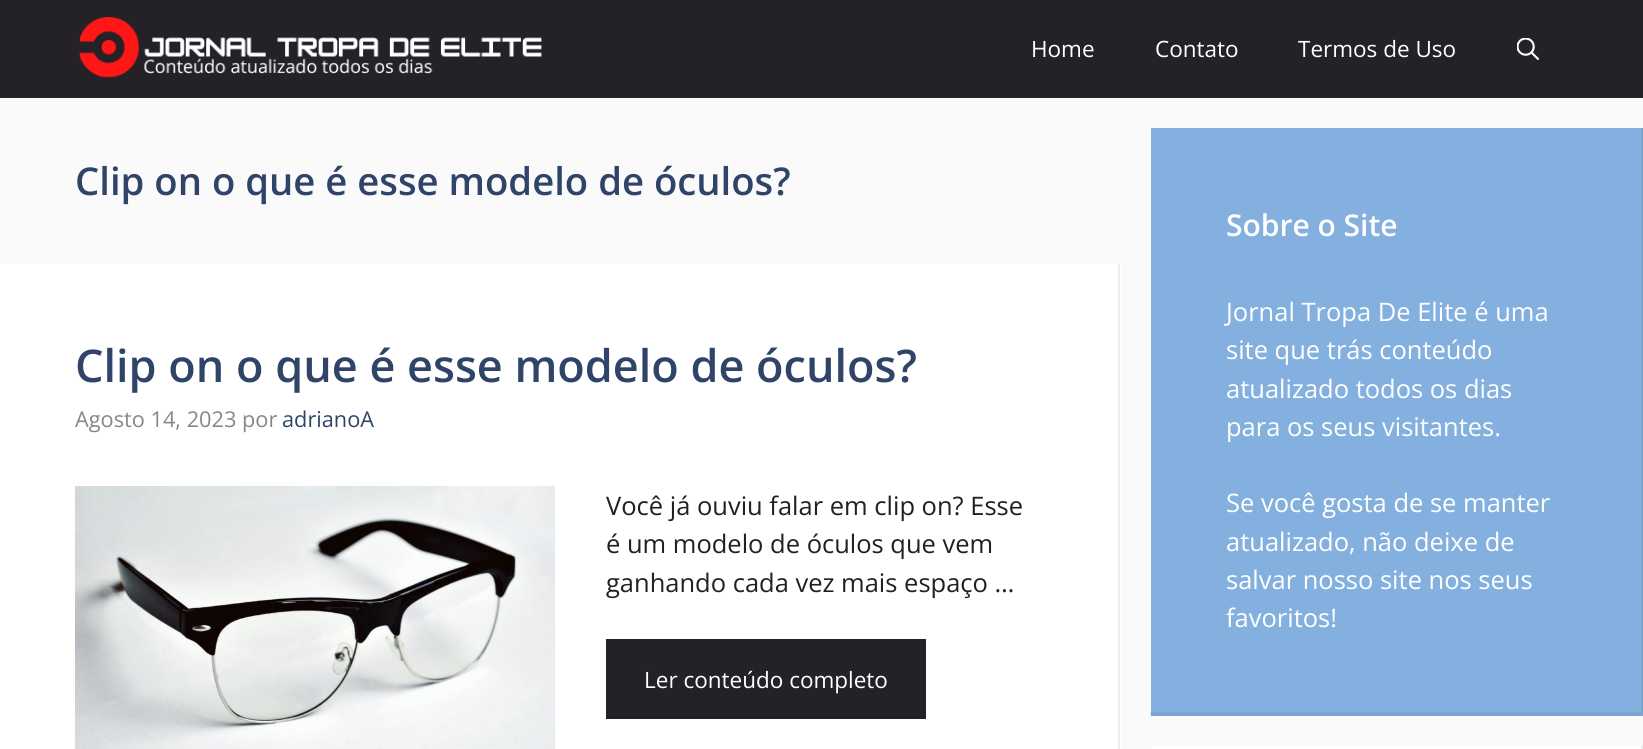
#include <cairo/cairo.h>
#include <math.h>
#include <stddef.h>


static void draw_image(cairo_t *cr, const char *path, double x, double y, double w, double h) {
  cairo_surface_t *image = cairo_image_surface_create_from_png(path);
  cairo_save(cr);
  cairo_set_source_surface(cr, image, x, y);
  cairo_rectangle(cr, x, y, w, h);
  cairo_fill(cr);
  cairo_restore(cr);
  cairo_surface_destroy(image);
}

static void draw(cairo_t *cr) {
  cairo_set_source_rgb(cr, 250 / 255.0, 250 / 255.0, 250 / 255.0);
  cairo_paint(cr);
  cairo_set_source_rgb(cr, 36 / 255.0, 34 / 255.0, 38 / 255.0);
  cairo_rectangle(cr, 0, 0, 1643, 98);
  cairo_fill(cr);
  draw_image(cr, "images/1.png", 79, 17, 463, 61);
  draw_image(cr, "images/2.png", 1517, 38, 22, 22);
  cairo_set_source_rgb(cr, 1, 1, 1);
  cairo_rectangle(cr, 0, 264, 1121, 485);
  cairo_fill(cr);
  cairo_set_source_rgb(cr, 237 / 255.0, 237 / 255.0, 237 / 255.0);
  cairo_new_path(cr);
  cairo_move_to(cr, 1120, 264);
  cairo_line_to(cr, 1120, 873);
  cairo_line_to(cr, 1118, 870);
  cairo_line_to(cr, 1118, 264);
  cairo_close_path(cr);
  cairo_fill(cr);
  draw_image(cr, "images/3.png", 75, 486, 480, 263);
  cairo_set_source_rgb(cr, 36 / 255.0, 34 / 255.0, 38 / 255.0);
  cairo_rectangle(cr, 606, 639, 320, 80);
  cairo_fill(cr);
  cairo_set_source_rgb(cr, 131 / 255.0, 176 / 255.0, 222 / 255.0);
  cairo_rectangle(cr, 1151, 128, 492, 588);
  cairo_fill(cr);
  cairo_set_source_rgb(cr, 122 / 255.0, 164 / 255.0, 206 / 255.0);
  cairo_new_path(cr);
  cairo_move_to(cr, 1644, 128);
  cairo_line_to(cr, 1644, 716);
  cairo_line_to(cr, 1641, 712);
  cairo_line_to(cr, 1641, 128);
  cairo_close_path(cr);
  cairo_fill(cr);
  cairo_set_source_rgba(cr, 0, 0, 0, 0.07);
  cairo_new_path(cr);
  cairo_move_to(cr, 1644, 716);
  cairo_line_to(cr, 1150, 716);
  cairo_line_to(cr, 1150, 712);
  cairo_line_to(cr, 1641, 712);
  cairo_close_path(cr);
  cairo_fill(cr);
  cairo_set_source_rgb(cr, 1, 1, 1);
  cairo_rectangle(cr, 1151, 746, 492, 3);
  cairo_fill(cr);
  cairo_set_source_rgb(cr, 237 / 255.0, 237 / 255.0, 237 / 255.0);
  cairo_new_path(cr);
  cairo_move_to(cr, 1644, 746);
  cairo_line_to(cr, 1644, 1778);
  cairo_line_to(cr, 1641, 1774);
  cairo_line_to(cr, 1641, 746);
  cairo_close_path(cr);
  cairo_fill(cr);
  cairo_select_font_face(cr, "Open Sans", CAIRO_FONT_SLANT_NORMAL, CAIRO_FONT_WEIGHT_NORMAL);
  cairo_set_font_size(cr, 22.5);
  cairo_set_source_rgb(cr, 1, 1, 1);
  cairo_move_to(cr, 1031, 57);
  cairo_show_text(cr, "Home");
  cairo_move_to(cr, 1155, 57);
  cairo_show_text(cr, "Contato");
  cairo_move_to(cr, 1298, 57);
  cairo_show_text(cr, "Termos de Uso");
  cairo_select_font_face(cr, "Open Sans SemiBold", CAIRO_FONT_SLANT_NORMAL, CAIRO_FONT_WEIGHT_NORMAL);
  cairo_set_font_size(cr, 38.25);
  cairo_set_source_rgb(cr, 47 / 255.0, 68 / 255.0, 104 / 255.0);
  cairo_move_to(cr, 75, 195);
  cairo_show_text(cr, "Clip on o que é esse modelo de óculos?");
  cairo_set_font_size(cr, 45);
  cairo_move_to(cr, 75, 382);
  cairo_show_text(cr, "Clip on o que é esse modelo de óculos?");
  cairo_select_font_face(cr, "Open Sans", CAIRO_FONT_SLANT_NORMAL, CAIRO_FONT_WEIGHT_NORMAL);
  cairo_set_font_size(cr, 21.75);
  cairo_set_source_rgb(cr, 135 / 255.0, 135 / 255.0, 135 / 255.0);
  cairo_move_to(cr, 75, 427);
  cairo_show_text(cr, "Agosto 14, 2023 por");
  cairo_set_source_rgb(cr, 47 / 255.0, 68 / 255.0, 104 / 255.0);
  cairo_move_to(cr, 282, 427);
  cairo_show_text(cr, "adrianoA");
  cairo_set_font_size(cr, 25.5);
  cairo_set_source_rgb(cr, 33 / 255.0, 33 / 255.0, 33 / 255.0);
  cairo_move_to(cr, 606, 515);
  cairo_show_text(cr, "Você já ouviu falar em clip on? Esse");
  cairo_move_to(cr, 606, 553);
  cairo_show_text(cr, "é um modelo de óculos que vem");
  cairo_move_to(cr, 606, 592);
  cairo_show_text(cr, "ganhando cada vez mais espaço …");
  cairo_set_font_size(cr, 22.5);
  cairo_set_source_rgb(cr, 1, 1, 1);
  cairo_move_to(cr, 644, 688);
  cairo_show_text(cr, "Ler conteúdo completo");
  cairo_select_font_face(cr, "Open Sans SemiBold", CAIRO_FONT_SLANT_NORMAL, CAIRO_FONT_WEIGHT_NORMAL);
  cairo_set_font_size(cr, 30);
  cairo_move_to(cr, 1226, 236);
  cairo_show_text(cr, "Sobre o Site");
  cairo_select_font_face(cr, "Open Sans", CAIRO_FONT_SLANT_NORMAL, CAIRO_FONT_WEIGHT_NORMAL);
  cairo_set_font_size(cr, 25.5);
  cairo_move_to(cr, 1226, 321);
  cairo_show_text(cr, "Jornal Tropa De Elite é uma");
  cairo_move_to(cr, 1226, 359);
  cairo_show_text(cr, "site que trás conteúdo");
  cairo_move_to(cr, 1226, 398);
  cairo_show_text(cr, "atualizado todos os dias");
  cairo_move_to(cr, 1226, 436);
  cairo_show_text(cr, "para os seus visitantes.");
  cairo_move_to(cr, 1226, 512);
  cairo_show_text(cr, "Se você gosta de se manter");
  cairo_move_to(cr, 1226, 551);
  cairo_show_text(cr, "atualizado, não deixe de");
  cairo_move_to(cr, 1226, 589);
  cairo_show_text(cr, "salvar nosso site nos seus");
  cairo_move_to(cr, 1226, 627);
  cairo_show_text(cr, "favoritos!");
}

int main(void) {
  cairo_surface_t *surface = cairo_image_surface_create(CAIRO_FORMAT_RGB24, 1643, 749);
  cairo_t *cr = cairo_create(surface);
  cairo_font_options_t *options = cairo_font_options_create();
  cairo_font_options_set_hint_metrics(options, CAIRO_HINT_METRICS_OFF);
  cairo_font_options_set_hint_style(options, CAIRO_HINT_STYLE_NONE);
  cairo_set_font_options(cr, options);
  cairo_set_miter_limit(cr, 4);
  draw(cr);
  cairo_surface_write_to_png(surface, "out.png");
  cairo_font_options_destroy(options);
  cairo_destroy(cr);
  cairo_surface_destroy(surface);
  return 0;
}
